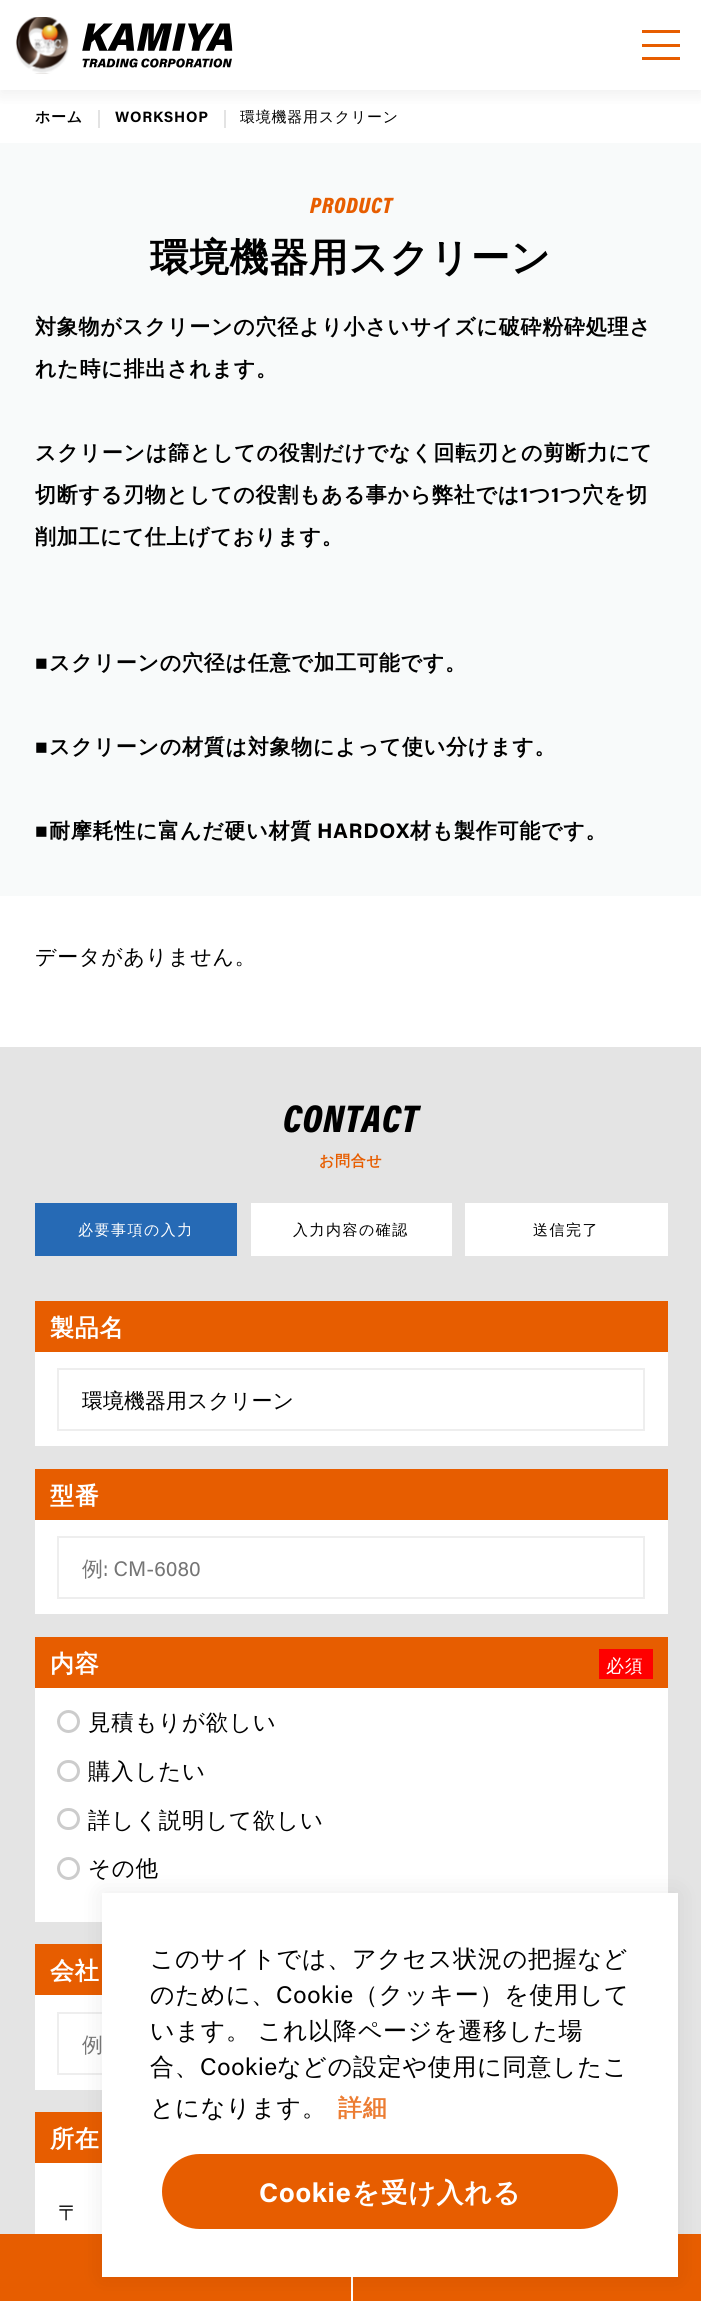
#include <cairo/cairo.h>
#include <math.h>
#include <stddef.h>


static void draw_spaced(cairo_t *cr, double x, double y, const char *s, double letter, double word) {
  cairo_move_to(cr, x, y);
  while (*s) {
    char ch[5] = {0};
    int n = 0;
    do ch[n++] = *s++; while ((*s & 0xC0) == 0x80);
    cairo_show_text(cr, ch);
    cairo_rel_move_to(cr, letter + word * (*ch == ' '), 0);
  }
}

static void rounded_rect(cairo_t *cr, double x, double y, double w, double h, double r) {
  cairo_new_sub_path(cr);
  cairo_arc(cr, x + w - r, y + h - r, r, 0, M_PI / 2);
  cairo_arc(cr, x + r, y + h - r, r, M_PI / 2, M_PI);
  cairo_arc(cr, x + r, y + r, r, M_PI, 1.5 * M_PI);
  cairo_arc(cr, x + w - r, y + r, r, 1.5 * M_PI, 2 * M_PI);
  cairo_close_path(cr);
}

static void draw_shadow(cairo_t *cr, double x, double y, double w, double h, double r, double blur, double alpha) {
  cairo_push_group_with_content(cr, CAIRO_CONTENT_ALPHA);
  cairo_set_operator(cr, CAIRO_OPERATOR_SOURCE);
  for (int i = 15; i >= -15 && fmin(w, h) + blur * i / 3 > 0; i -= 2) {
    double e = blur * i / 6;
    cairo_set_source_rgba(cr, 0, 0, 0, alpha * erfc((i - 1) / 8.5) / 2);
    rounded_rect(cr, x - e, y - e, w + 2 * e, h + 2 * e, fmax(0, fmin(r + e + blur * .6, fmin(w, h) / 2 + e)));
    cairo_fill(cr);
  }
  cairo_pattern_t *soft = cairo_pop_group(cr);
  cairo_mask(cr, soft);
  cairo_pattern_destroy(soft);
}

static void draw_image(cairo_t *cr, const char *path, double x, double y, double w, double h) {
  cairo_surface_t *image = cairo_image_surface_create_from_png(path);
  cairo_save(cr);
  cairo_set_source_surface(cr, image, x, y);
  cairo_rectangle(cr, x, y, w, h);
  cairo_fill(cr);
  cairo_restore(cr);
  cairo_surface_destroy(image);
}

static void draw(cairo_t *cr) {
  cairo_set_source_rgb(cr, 1, 1, 1);
  cairo_paint(cr);
  cairo_set_source_rgb(cr, 227 / 255.0, 227 / 255.0, 227 / 255.0);
  cairo_rectangle(cr, 98, 110, 2, 18);
  cairo_fill(cr);
  cairo_rectangle(cr, 224, 110, 2, 18);
  cairo_fill(cr);
  cairo_save(cr);
  cairo_rectangle(cr, 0, 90, 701, 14);
  cairo_clip(cr);
  cairo_set_source_rgb(cr, 167 / 255.0, 167 / 255.0, 167 / 255.0);
  draw_shadow(cr, 0, 5, 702, 90, 0, 7.5, 0.17);
  cairo_restore(cr);
  draw_image(cr, "images/1.png", 15, 17, 218, 57);
  cairo_set_source_rgb(cr, 231 / 255.0, 93 / 255.0, 0);
  cairo_rectangle(cr, 642, 44, 38, 3);
  cairo_fill(cr);
  cairo_rectangle(cr, 642, 30, 38, 3);
  cairo_fill(cr);
  cairo_rectangle(cr, 642, 57, 38, 3);
  cairo_fill(cr);
  cairo_set_source_rgb(cr, 248 / 255.0, 250 / 255.0, 250 / 255.0);
  cairo_rectangle(cr, 0, 143, 701, 753);
  cairo_fill(cr);
  cairo_set_source_rgb(cr, 228 / 255.0, 228 / 255.0, 228 / 255.0);
  cairo_rectangle(cr, 0, 1047, 701, 1187);
  cairo_fill(cr);
  cairo_set_source_rgb(cr, 38 / 255.0, 106 / 255.0, 181 / 255.0);
  cairo_rectangle(cr, 35, 1203, 202, 53);
  cairo_fill(cr);
  cairo_set_source_rgb(cr, 1, 1, 1);
  cairo_rectangle(cr, 251, 1203, 201, 53);
  cairo_fill(cr);
  cairo_rectangle(cr, 465, 1203, 203, 53);
  cairo_fill(cr);
  cairo_set_source_rgb(cr, 231 / 255.0, 93 / 255.0, 0);
  cairo_rectangle(cr, 35, 1301, 633, 51);
  cairo_fill(cr);
  cairo_set_source_rgb(cr, 1, 1, 1);
  cairo_rectangle(cr, 35, 1352, 633, 94);
  cairo_fill(cr);
  cairo_rectangle(cr, 58, 1369, 586, 61);
  cairo_set_source_rgb(cr, 238 / 255.0, 238 / 255.0, 238 / 255.0);
  cairo_stroke(cr);
  cairo_set_source_rgb(cr, 231 / 255.0, 93 / 255.0, 0);
  cairo_rectangle(cr, 35, 1469, 633, 51);
  cairo_fill(cr);
  cairo_set_source_rgb(cr, 1, 1, 1);
  cairo_rectangle(cr, 35, 1520, 633, 94);
  cairo_fill(cr);
  cairo_rectangle(cr, 58, 1537, 586, 61);
  cairo_set_source_rgb(cr, 238 / 255.0, 238 / 255.0, 238 / 255.0);
  cairo_stroke(cr);
  cairo_set_source_rgb(cr, 231 / 255.0, 93 / 255.0, 0);
  cairo_rectangle(cr, 35, 1637, 633, 51);
  cairo_fill(cr);
  cairo_set_source_rgb(cr, 1, 0, 0);
  cairo_rectangle(cr, 599, 1649, 54, 30);
  cairo_fill(cr);
  cairo_set_source_rgb(cr, 1, 1, 1);
  cairo_rectangle(cr, 35, 1688, 633, 234);
  cairo_fill(cr);
  cairo_arc(cr, 68.5, 1721.5, 10, 0, 2 * M_PI);
  cairo_set_source_rgb(cr, 204 / 255.0, 204 / 255.0, 204 / 255.0);
  cairo_set_line_width(cr, 3);
  cairo_stroke(cr);
  rounded_rect(cr, 58.5, 1761.5, 20, 19, 9.5);
  cairo_stroke(cr);
  rounded_rect(cr, 58.5, 1809.5, 20, 19, 9.5);
  cairo_stroke(cr);
  cairo_arc(cr, 68.5, 1868.5, 10, 0, 2 * M_PI);
  cairo_stroke(cr);
  cairo_set_source_rgb(cr, 231 / 255.0, 93 / 255.0, 0);
  cairo_rectangle(cr, 35, 1944, 67, 51);
  cairo_fill(cr);
  cairo_set_source_rgb(cr, 1, 1, 1);
  cairo_rectangle(cr, 35, 1995, 67, 95);
  cairo_fill(cr);
  cairo_rectangle(cr, 58, 2013, 586, 61);
  cairo_set_source_rgb(cr, 238 / 255.0, 238 / 255.0, 238 / 255.0);
  cairo_set_line_width(cr, 2);
  cairo_stroke(cr);
  cairo_set_source_rgb(cr, 231 / 255.0, 93 / 255.0, 0);
  cairo_rectangle(cr, 35, 2112, 67, 51);
  cairo_fill(cr);
  cairo_set_source_rgb(cr, 1, 1, 1);
  cairo_rectangle(cr, 35, 2163, 67, 71);
  cairo_fill(cr);
  cairo_set_source_rgb(cr, 231 / 255.0, 93 / 255.0, 0);
  cairo_rectangle(cr, 0, 2234, 701, 67);
  cairo_fill(cr);
  cairo_set_source_rgb(cr, 1, 1, 1);
  cairo_rectangle(cr, 351, 2277, 2, 24);
  cairo_fill(cr);
  cairo_set_source_rgb(cr, 0, 0, 0);
  draw_shadow(cr, 102, 1893, 576, 384, 0, 12, 0.08);
  cairo_set_source_rgb(cr, 1, 1, 1);
  cairo_rectangle(cr, 102, 1893, 576, 384);
  cairo_fill(cr);
  cairo_set_source_rgb(cr, 231 / 255.0, 93 / 255.0, 0);
  rounded_rect(cr, 163, 2155, 454, 73, 36.5);
  cairo_fill_preserve(cr);
  cairo_stroke(cr);
  cairo_select_font_face(cr, "WenQuanYi Zen Hei", CAIRO_FONT_SLANT_NORMAL, CAIRO_FONT_WEIGHT_BOLD);
  cairo_set_font_size(cr, 15);
  cairo_set_source_rgb(cr, 0, 0, 0);
  draw_spaced(cr, 35, 122, "ホーム", 0.75, 0);
  cairo_select_font_face(cr, "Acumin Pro", CAIRO_FONT_SLANT_NORMAL, CAIRO_FONT_WEIGHT_BOLD);
  draw_spaced(cr, 115, 122, "WORKSHOP", 0.75, 0);
  cairo_select_font_face(cr, "WenQuanYi Zen Hei Medium", CAIRO_FONT_SLANT_NORMAL, CAIRO_FONT_WEIGHT_NORMAL);
  draw_spaced(cr, 240, 122, "環境機器用スクリーン", 0.75, 0);
  cairo_select_font_face(cr, "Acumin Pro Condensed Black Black", CAIRO_FONT_SLANT_ITALIC, CAIRO_FONT_WEIGHT_NORMAL);
  cairo_set_font_size(cr, 22.5);
  cairo_set_source_rgb(cr, 231 / 255.0, 93 / 255.0, 0);
  draw_spaced(cr, 310, 213, "PRODUCT", 0.75, 0);
  cairo_select_font_face(cr, "WenQuanYi Zen Hei", CAIRO_FONT_SLANT_NORMAL, CAIRO_FONT_WEIGHT_BOLD);
  cairo_set_font_size(cr, 39);
  cairo_set_source_rgb(cr, 0, 0, 0);
  draw_spaced(cr, 150, 271, "環境機器用スクリーン", 0.75, 0);
  cairo_set_font_size(cr, 21);
  draw_spaced(cr, 35, 334, "対象物がスクリーンの穴径より小さいサイズに破砕粉砕処理さ", 0.75, 0);
  draw_spaced(cr, 35, 376, "れた時に排出されます。", 0.75, 0);
  draw_spaced(cr, 35, 460, "スクリーンは篩としての役割だけでなく回転刃との剪断力にて", 0.75, 0);
  draw_spaced(cr, 35, 502, "切断する刃物としての役割もある事から弊社では", 0.75, 0);
  cairo_select_font_face(cr, "Acumin Pro", CAIRO_FONT_SLANT_NORMAL, CAIRO_FONT_WEIGHT_BOLD);
  draw_spaced(cr, 520, 502, "1", 0.75, 0);
  cairo_select_font_face(cr, "WenQuanYi Zen Hei", CAIRO_FONT_SLANT_NORMAL, CAIRO_FONT_WEIGHT_BOLD);
  draw_spaced(cr, 529, 502, "つ", 0.75, 0);
  cairo_select_font_face(cr, "Acumin Pro", CAIRO_FONT_SLANT_NORMAL, CAIRO_FONT_WEIGHT_BOLD);
  draw_spaced(cr, 551, 502, "1", 0.75, 0);
  cairo_select_font_face(cr, "WenQuanYi Zen Hei", CAIRO_FONT_SLANT_NORMAL, CAIRO_FONT_WEIGHT_BOLD);
  draw_spaced(cr, 560, 502, "つ穴を切", 0.75, 0);
  draw_spaced(cr, 35, 544, "削加工にて仕上げております。", 0.75, 0);
  cairo_select_font_face(cr, "Liberation Sans", CAIRO_FONT_SLANT_NORMAL, CAIRO_FONT_WEIGHT_BOLD);
  draw_spaced(cr, 35, 670, "■", 0.75, 0);
  cairo_select_font_face(cr, "WenQuanYi Zen Hei", CAIRO_FONT_SLANT_NORMAL, CAIRO_FONT_WEIGHT_BOLD);
  draw_spaced(cr, 49, 670, "スクリーンの穴径は任意で加工可能です。", 0.75, 0);
  cairo_select_font_face(cr, "Liberation Sans", CAIRO_FONT_SLANT_NORMAL, CAIRO_FONT_WEIGHT_BOLD);
  draw_spaced(cr, 35, 754, "■", 0.75, 0);
  cairo_select_font_face(cr, "WenQuanYi Zen Hei", CAIRO_FONT_SLANT_NORMAL, CAIRO_FONT_WEIGHT_BOLD);
  draw_spaced(cr, 49, 754, "スクリーンの材質は対象物によって使い分けます。", 0.75, 0);
  cairo_select_font_face(cr, "Liberation Sans", CAIRO_FONT_SLANT_NORMAL, CAIRO_FONT_WEIGHT_BOLD);
  draw_spaced(cr, 35, 838, "■", 0.75, 0);
  cairo_select_font_face(cr, "WenQuanYi Zen Hei", CAIRO_FONT_SLANT_NORMAL, CAIRO_FONT_WEIGHT_BOLD);
  draw_spaced(cr, 49, 838, "耐摩耗性に富んだ硬い材質", 0.75, 0);
  cairo_select_font_face(cr, "Acumin Pro", CAIRO_FONT_SLANT_NORMAL, CAIRO_FONT_WEIGHT_BOLD);
  draw_spaced(cr, 317, 838, "HARDOX", 0.75, 0);
  cairo_select_font_face(cr, "WenQuanYi Zen Hei", CAIRO_FONT_SLANT_NORMAL, CAIRO_FONT_WEIGHT_BOLD);
  draw_spaced(cr, 410, 838, "材も製作可能です。", 0.75, 0);
  cairo_select_font_face(cr, "WenQuanYi Zen Hei Medium", CAIRO_FONT_SLANT_NORMAL, CAIRO_FONT_WEIGHT_NORMAL);
  draw_spaced(cr, 35, 964, "データがありません。", 0.75, 0);
  cairo_select_font_face(cr, "Acumin Pro Condensed Black Black", CAIRO_FONT_SLANT_ITALIC, CAIRO_FONT_WEIGHT_NORMAL);
  cairo_set_font_size(cr, 39);
  draw_spaced(cr, 283, 1132, "CONTACT", 0.75, 0);
  cairo_select_font_face(cr, "WenQuanYi Zen Hei", CAIRO_FONT_SLANT_NORMAL, CAIRO_FONT_WEIGHT_BOLD);
  cairo_set_font_size(cr, 15);
  cairo_set_source_rgb(cr, 231 / 255.0, 93 / 255.0, 0);
  draw_spaced(cr, 319, 1166, "お問合せ", 0.75, 0);
  cairo_select_font_face(cr, "WenQuanYi Zen Hei Medium", CAIRO_FONT_SLANT_NORMAL, CAIRO_FONT_WEIGHT_NORMAL);
  cairo_set_source_rgb(cr, 1, 1, 1);
  draw_spaced(cr, 78, 1235, "必要事項の入力", 1.5, 0);
  cairo_set_source_rgb(cr, 0, 0, 0);
  draw_spaced(cr, 293, 1235, "入力内容の確認", 1.5, 0);
  draw_spaced(cr, 533, 1235, "送信完了", 1.5, 0);
  cairo_select_font_face(cr, "WenQuanYi Zen Hei", CAIRO_FONT_SLANT_NORMAL, CAIRO_FONT_WEIGHT_BOLD);
  cairo_set_font_size(cr, 24);
  cairo_set_source_rgb(cr, 1, 1, 1);
  draw_spaced(cr, 50, 1336, "製品名", 0.75, 0);
  cairo_select_font_face(cr, "WenQuanYi Zen Hei Medium", CAIRO_FONT_SLANT_NORMAL, CAIRO_FONT_WEIGHT_NORMAL);
  cairo_set_font_size(cr, 21);
  cairo_set_source_rgb(cr, 0, 0, 0);
  cairo_move_to(cr, 82, 1408);
  cairo_show_text(cr, "環境機器用スクリーン");
  cairo_select_font_face(cr, "WenQuanYi Zen Hei", CAIRO_FONT_SLANT_NORMAL, CAIRO_FONT_WEIGHT_BOLD);
  cairo_set_font_size(cr, 24);
  cairo_set_source_rgb(cr, 1, 1, 1);
  draw_spaced(cr, 50, 1504, "型番", 0.75, 0);
  cairo_select_font_face(cr, "WenQuanYi Zen Hei Medium", CAIRO_FONT_SLANT_NORMAL, CAIRO_FONT_WEIGHT_NORMAL);
  cairo_set_font_size(cr, 21);
  cairo_set_source_rgb(cr, 117 / 255.0, 117 / 255.0, 117 / 255.0);
  cairo_move_to(cr, 82, 1576);
  cairo_show_text(cr, "例");
  cairo_select_font_face(cr, "Acumin Pro", CAIRO_FONT_SLANT_NORMAL, CAIRO_FONT_WEIGHT_NORMAL);
  cairo_move_to(cr, 103, 1576);
  cairo_show_text(cr, ": CM-6080");
  cairo_select_font_face(cr, "WenQuanYi Zen Hei", CAIRO_FONT_SLANT_NORMAL, CAIRO_FONT_WEIGHT_BOLD);
  cairo_set_font_size(cr, 24);
  cairo_set_source_rgb(cr, 1, 1, 1);
  draw_spaced(cr, 50, 1672, "内容", 0.75, 0);
  cairo_select_font_face(cr, "WenQuanYi Zen Hei Medium", CAIRO_FONT_SLANT_NORMAL, CAIRO_FONT_WEIGHT_NORMAL);
  cairo_set_font_size(cr, 18);
  draw_spaced(cr, 606, 1672, "必須", 0.75, 0);
  cairo_set_font_size(cr, 22.5);
  cairo_set_source_rgb(cr, 0, 0, 0);
  draw_spaced(cr, 88, 1730, "見積もりが欲しい", 0.75, 0);
  draw_spaced(cr, 88, 1779, "購入したい", 0.75, 0);
  draw_spaced(cr, 88, 1828, "詳しく説明して欲しい", 0.75, 0);
  draw_spaced(cr, 88, 1876, "その他", 0.75, 0);
  cairo_select_font_face(cr, "WenQuanYi Zen Hei", CAIRO_FONT_SLANT_NORMAL, CAIRO_FONT_WEIGHT_BOLD);
  cairo_set_font_size(cr, 24);
  cairo_set_source_rgb(cr, 1, 1, 1);
  draw_spaced(cr, 50, 1979, "会社", 0.75, 0);
  cairo_select_font_face(cr, "WenQuanYi Zen Hei Medium", CAIRO_FONT_SLANT_NORMAL, CAIRO_FONT_WEIGHT_NORMAL);
  cairo_set_font_size(cr, 21);
  cairo_set_source_rgb(cr, 117 / 255.0, 117 / 255.0, 117 / 255.0);
  cairo_move_to(cr, 82, 2052);
  cairo_show_text(cr, "例");
  cairo_select_font_face(cr, "WenQuanYi Zen Hei", CAIRO_FONT_SLANT_NORMAL, CAIRO_FONT_WEIGHT_BOLD);
  cairo_set_font_size(cr, 24);
  cairo_set_source_rgb(cr, 1, 1, 1);
  draw_spaced(cr, 50, 2147, "所在", 0.75, 0);
  cairo_select_font_face(cr, "WenQuanYi Zen Hei Medium", CAIRO_FONT_SLANT_NORMAL, CAIRO_FONT_WEIGHT_NORMAL);
  cairo_set_font_size(cr, 21);
  cairo_set_source_rgb(cr, 0, 0, 0);
  draw_spaced(cr, 58, 2220, "〒", 0.75, 0);
  cairo_set_font_size(cr, 24);
  draw_spaced(cr, 150, 1967, "このサイトでは、アクセス状況の把握など", 0.75, 0);
  draw_spaced(cr, 150, 2003, "のために、", 0.75, 0);
  cairo_select_font_face(cr, "Acumin Pro", CAIRO_FONT_SLANT_NORMAL, CAIRO_FONT_WEIGHT_NORMAL);
  draw_spaced(cr, 276, 2003, "Cookie", 0.75, 0);
  cairo_select_font_face(cr, "WenQuanYi Zen Hei Medium", CAIRO_FONT_SLANT_NORMAL, CAIRO_FONT_WEIGHT_NORMAL);
  draw_spaced(cr, 354, 2003, "（クッキー）を使用して", 0.75, 0);
  draw_spaced(cr, 150, 2039, "います。 これ以降ページを遷移した場", 0.75, -1);
  draw_spaced(cr, 150, 2075, "合、", 0.75, 0);
  cairo_select_font_face(cr, "Acumin Pro", CAIRO_FONT_SLANT_NORMAL, CAIRO_FONT_WEIGHT_NORMAL);
  draw_spaced(cr, 200, 2075, "Cookie", 0.75, 0);
  cairo_select_font_face(cr, "WenQuanYi Zen Hei Medium", CAIRO_FONT_SLANT_NORMAL, CAIRO_FONT_WEIGHT_NORMAL);
  draw_spaced(cr, 277, 2075, "などの設定や使用に同意したこ", 0.75, 0);
  draw_spaced(cr, 150, 2116, "とになります。", 0.75, 0);
  cairo_select_font_face(cr, "WenQuanYi Zen Hei", CAIRO_FONT_SLANT_NORMAL, CAIRO_FONT_WEIGHT_BOLD);
  cairo_set_source_rgb(cr, 236 / 255.0, 125 / 255.0, 51 / 255.0);
  draw_spaced(cr, 338, 2116, "詳細", 0.75, 0);
  cairo_select_font_face(cr, "Acumin Pro", CAIRO_FONT_SLANT_NORMAL, CAIRO_FONT_WEIGHT_BOLD);
  cairo_set_font_size(cr, 27);
  cairo_set_source_rgb(cr, 1, 1, 1);
  draw_spaced(cr, 259, 2202, "Cookie", 0.75, 0);
  cairo_select_font_face(cr, "WenQuanYi Zen Hei", CAIRO_FONT_SLANT_NORMAL, CAIRO_FONT_WEIGHT_BOLD);
  draw_spaced(cr, 352, 2202, "を受け入れる", 0.75, 0);
}

int main(void) {
  cairo_surface_t *surface = cairo_image_surface_create(CAIRO_FORMAT_RGB24, 701, 2301);
  cairo_t *cr = cairo_create(surface);
  cairo_font_options_t *options = cairo_font_options_create();
  cairo_font_options_set_hint_metrics(options, CAIRO_HINT_METRICS_OFF);
  cairo_font_options_set_hint_style(options, CAIRO_HINT_STYLE_NONE);
  cairo_set_font_options(cr, options);
  cairo_set_miter_limit(cr, 4);
  draw(cr);
  cairo_surface_write_to_png(surface, "out.png");
  cairo_font_options_destroy(options);
  cairo_destroy(cr);
  cairo_surface_destroy(surface);
  return 0;
}
